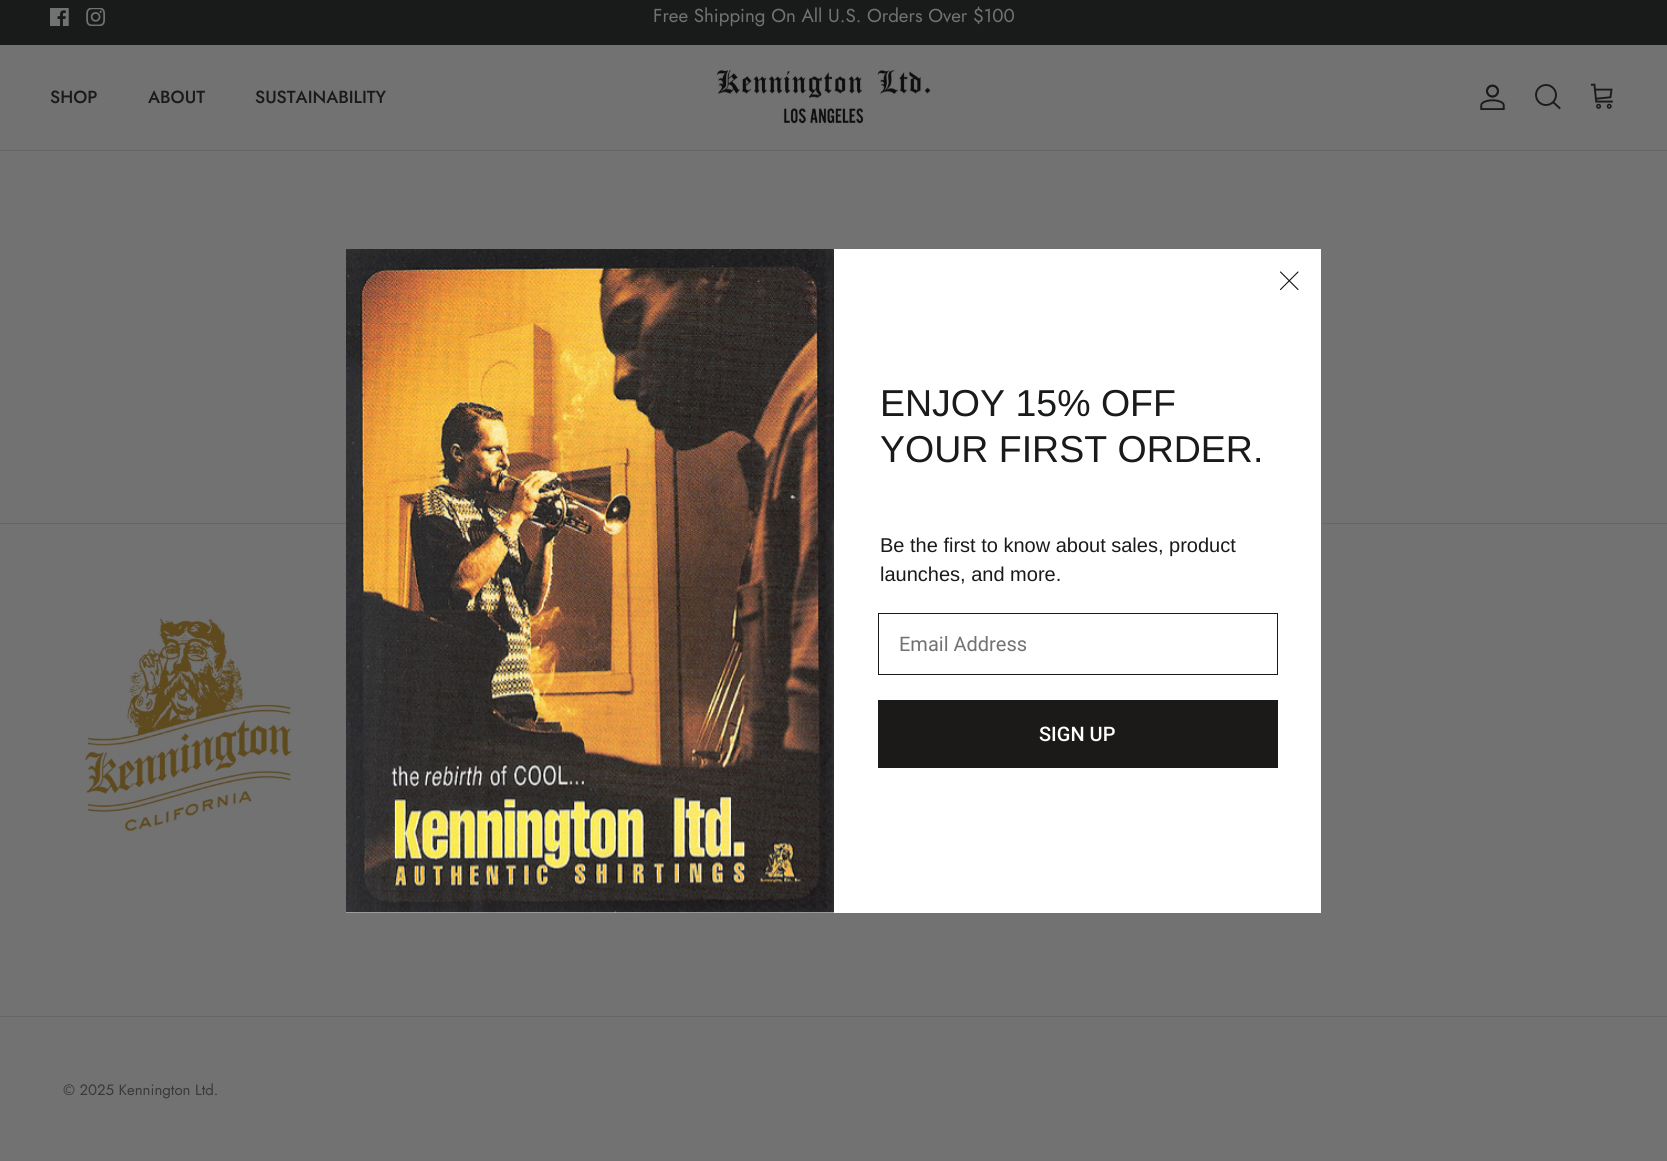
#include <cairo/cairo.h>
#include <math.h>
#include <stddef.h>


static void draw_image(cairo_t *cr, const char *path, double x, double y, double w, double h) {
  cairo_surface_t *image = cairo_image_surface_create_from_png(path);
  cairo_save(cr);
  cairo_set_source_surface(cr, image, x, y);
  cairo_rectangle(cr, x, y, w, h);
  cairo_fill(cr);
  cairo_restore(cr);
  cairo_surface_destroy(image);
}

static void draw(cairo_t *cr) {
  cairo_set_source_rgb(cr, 114 / 255.0, 114 / 255.0, 114 / 255.0);
  cairo_paint(cr);
  cairo_set_source_rgb(cr, 25 / 255.0, 26 / 255.0, 26 / 255.0);
  cairo_rectangle(cr, 0, 0, 1667, 45);
  cairo_fill(cr);
  draw_image(cr, "images/1.png", 50, 8, 19, 18);
  draw_image(cr, "images/2.png", 86, 8, 19, 18);
  cairo_set_source_rgb(cr, 102 / 255.0, 102 / 255.0, 102 / 255.0);
  cairo_rectangle(cr, 0, 150, 1667, 1);
  cairo_fill(cr);
  draw_image(cr, "images/3.png", 717, 70, 214, 54);
  draw_image(cr, "images/4.png", 1480, 84, 25, 26);
  cairo_arc(cr, 1546, 95, 10, 0, 2 * M_PI);
  cairo_set_source_rgb(cr, 25 / 255.0, 26 / 255.0, 26 / 255.0);
  cairo_set_line_width(cr, 1.9);
  cairo_stroke(cr);
  cairo_new_path(cr);
  cairo_move_to(cr, 1553.5, 102.5);
  cairo_line_to(cr, 1559.5, 108);
  cairo_set_line_cap(cr, CAIRO_LINE_CAP_SQUARE);
  cairo_stroke(cr);
  draw_image(cr, "images/5.png", 1590, 83, 23, 26);
  cairo_set_source_rgb(cr, 102 / 255.0, 102 / 255.0, 102 / 255.0);
  cairo_rectangle(cr, 0, 523, 1667, 1);
  cairo_fill(cr);
  cairo_set_source_rgb(cr, 1, 1, 1);
  cairo_rectangle(cr, 346, 249, 975, 664);
  cairo_fill(cr);
  cairo_new_path(cr);
  cairo_move_to(cr, 1280.5, 272);
  cairo_line_to(cr, 1298, 289.5);
  cairo_move_to(cr, 1280.5, 289.5);
  cairo_line_to(cr, 1298, 272);
  cairo_close_path(cr);
  cairo_set_source_rgb(cr, 19 / 255.0, 18 / 255.0, 18 / 255.0);
  cairo_set_line_width(cr, 1.1);
  cairo_set_line_cap(cr, CAIRO_LINE_CAP_ROUND);
  cairo_set_line_join(cr, CAIRO_LINE_JOIN_ROUND);
  cairo_stroke(cr);
  draw_image(cr, "images/6.png", 346, 249, 488, 664);
  cairo_rectangle(cr, 878.5, 613.5, 399, 61);
  cairo_set_source_rgb(cr, 28 / 255.0, 25 / 255.0, 25 / 255.0);
  cairo_set_line_width(cr, 1);
  cairo_set_line_cap(cr, CAIRO_LINE_CAP_BUTT);
  cairo_set_line_join(cr, CAIRO_LINE_JOIN_MITER);
  cairo_stroke(cr);
  cairo_rectangle(cr, 878, 700, 400, 68);
  cairo_fill(cr);
  draw_image(cr, "images/7.png", 84, 617, 210, 219);
  cairo_set_source_rgb(cr, 102 / 255.0, 102 / 255.0, 102 / 255.0);
  cairo_rectangle(cr, 0, 1016, 1667, 1);
  cairo_fill(cr);
  cairo_select_font_face(cr, "Jost", CAIRO_FONT_SLANT_NORMAL, CAIRO_FONT_WEIGHT_NORMAL);
  cairo_set_font_size(cr, 18.75);
  cairo_set_source_rgb(cr, 114 / 255.0, 114 / 255.0, 114 / 255.0);
  cairo_move_to(cr, 653, 22);
  cairo_show_text(cr, "Free Shipping On All U.S. Orders Over $100");
  cairo_select_font_face(cr, "Jost Medium", CAIRO_FONT_SLANT_NORMAL, CAIRO_FONT_WEIGHT_NORMAL);
  cairo_set_font_size(cr, 17.5);
  cairo_set_source_rgb(cr, 25 / 255.0, 26 / 255.0, 26 / 255.0);
  cairo_move_to(cr, 50, 103);
  cairo_show_text(cr, "SHOP");
  cairo_move_to(cr, 148, 103);
  cairo_show_text(cr, "ABOUT");
  cairo_move_to(cr, 255, 103);
  cairo_show_text(cr, "SUSTAINABILITY");
  cairo_select_font_face(cr, "Liberation Sans", CAIRO_FONT_SLANT_NORMAL, CAIRO_FONT_WEIGHT_NORMAL);
  cairo_set_font_size(cr, 37.5);
  cairo_move_to(cr, 880, 416);
  cairo_show_text(cr, "ENJOY 15% OFF");
  cairo_move_to(cr, 880, 462);
  cairo_show_text(cr, "YOUR FIRST ORDER.");
  cairo_set_font_size(cr, 20);
  cairo_move_to(cr, 880, 552);
  cairo_show_text(cr, "Be the first to know about sales, product");
  cairo_move_to(cr, 880, 581);
  cairo_show_text(cr, "launches, and more.");
  cairo_select_font_face(cr, "Roboto", CAIRO_FONT_SLANT_NORMAL, CAIRO_FONT_WEIGHT_NORMAL);
  cairo_set_source_rgb(cr, 114 / 255.0, 114 / 255.0, 114 / 255.0);
  cairo_move_to(cr, 899, 651);
  cairo_show_text(cr, "Email Address");
  cairo_select_font_face(cr, "Roboto Medium", CAIRO_FONT_SLANT_NORMAL, CAIRO_FONT_WEIGHT_NORMAL);
  cairo_set_source_rgb(cr, 1, 1, 1);
  cairo_move_to(cr, 1039, 741);
  cairo_show_text(cr, "SIGN UP");
  cairo_select_font_face(cr, "Jost", CAIRO_FONT_SLANT_NORMAL, CAIRO_FONT_WEIGHT_NORMAL);
  cairo_set_font_size(cr, 15);
  cairo_set_source_rgb(cr, 56 / 255.0, 57 / 255.0, 59 / 255.0);
  cairo_move_to(cr, 63, 1095);
  cairo_show_text(cr, "© 2025 Kennington Ltd.");
}

int main(void) {
  cairo_surface_t *surface = cairo_image_surface_create(CAIRO_FORMAT_RGB24, 1667, 1161);
  cairo_t *cr = cairo_create(surface);
  cairo_font_options_t *options = cairo_font_options_create();
  cairo_font_options_set_hint_metrics(options, CAIRO_HINT_METRICS_OFF);
  cairo_font_options_set_hint_style(options, CAIRO_HINT_STYLE_NONE);
  cairo_set_font_options(cr, options);
  cairo_set_miter_limit(cr, 4);
  draw(cr);
  cairo_surface_write_to_png(surface, "out.png");
  cairo_font_options_destroy(options);
  cairo_destroy(cr);
  cairo_surface_destroy(surface);
  return 0;
}
